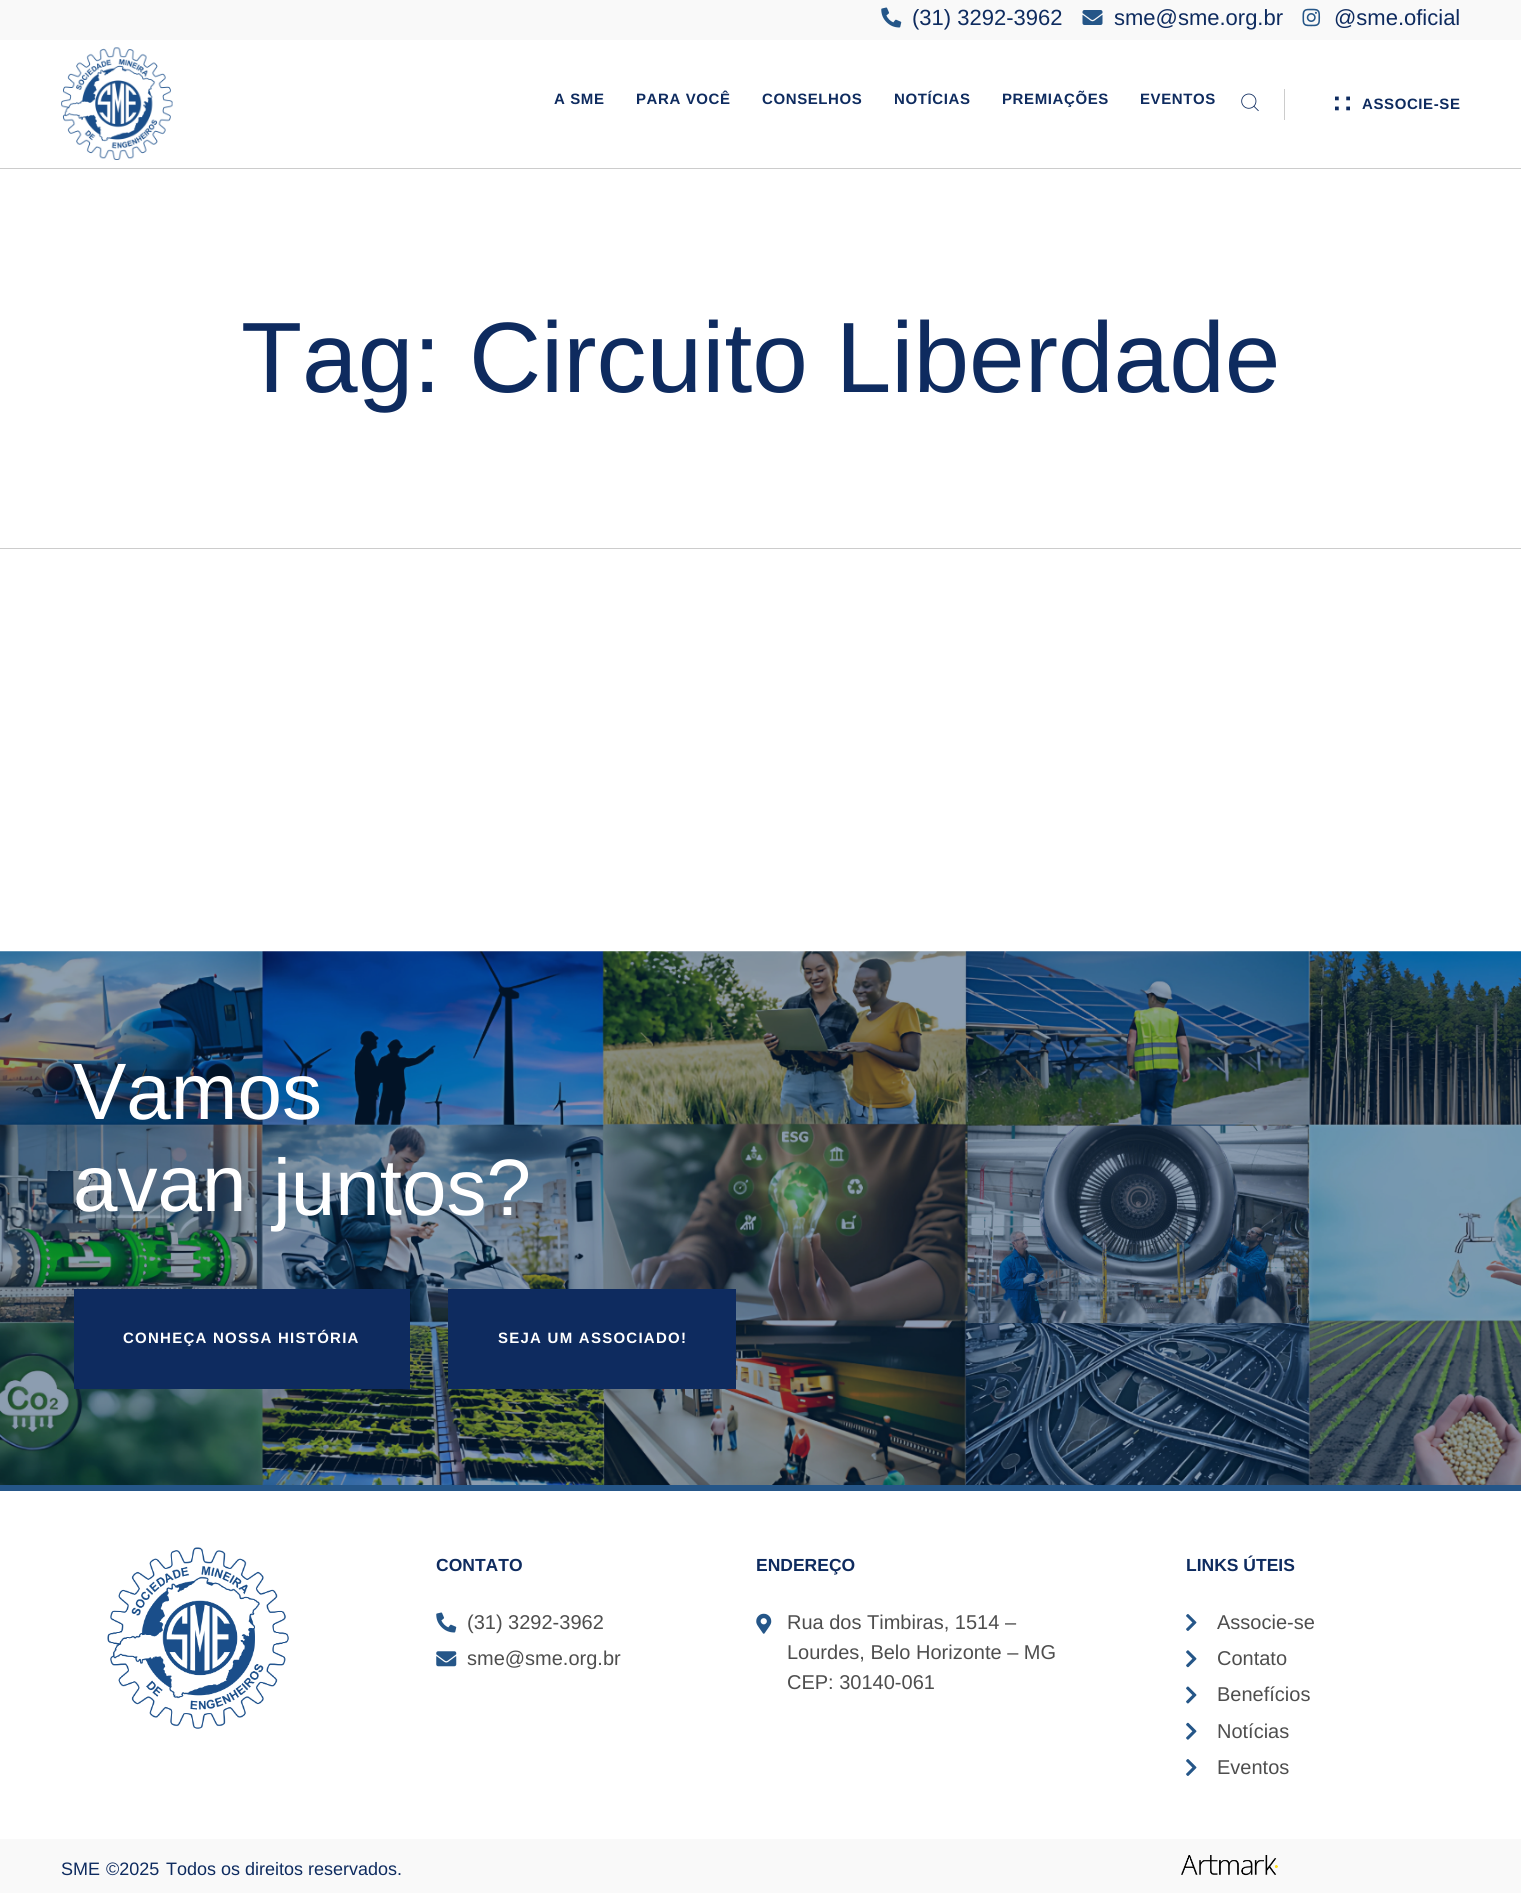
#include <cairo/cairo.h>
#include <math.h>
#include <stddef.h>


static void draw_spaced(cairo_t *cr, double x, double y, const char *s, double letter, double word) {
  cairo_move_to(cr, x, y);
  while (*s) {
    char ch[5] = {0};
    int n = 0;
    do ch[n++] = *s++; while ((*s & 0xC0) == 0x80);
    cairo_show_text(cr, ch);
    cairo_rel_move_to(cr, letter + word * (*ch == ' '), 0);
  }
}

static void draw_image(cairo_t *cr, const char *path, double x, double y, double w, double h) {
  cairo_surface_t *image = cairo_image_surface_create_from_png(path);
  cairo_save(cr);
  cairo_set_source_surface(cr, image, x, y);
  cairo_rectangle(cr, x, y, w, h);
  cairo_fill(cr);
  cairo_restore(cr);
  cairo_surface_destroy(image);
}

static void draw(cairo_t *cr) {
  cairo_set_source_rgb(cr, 1, 1, 1);
  cairo_paint(cr);
  cairo_set_source_rgb(cr, 249 / 255.0, 249 / 255.0, 249 / 255.0);
  cairo_rectangle(cr, 0, 0, 1521, 40);
  cairo_fill(cr);
  draw_image(cr, "images/1.png", 881, 7, 21, 21);
  draw_image(cr, "images/2.png", 1082, 10, 21, 15);
  draw_image(cr, "images/3.png", 1302, 8, 19, 19);
  draw_image(cr, "images/4.png", 61, 47, 112, 113);
  cairo_set_source_rgb(cr, 204 / 255.0, 204 / 255.0, 204 / 255.0);
  cairo_rectangle(cr, 1284, 89, 1, 31);
  cairo_fill(cr);
  draw_image(cr, "images/5.png", 1241, 93, 18, 19);
  draw_image(cr, "images/6.png", 1335, 96, 15, 15);
  cairo_rectangle(cr, 0, 168, 1521, 1);
  cairo_fill(cr);
  cairo_rectangle(cr, 0, 548, 1521, 1);
  cairo_fill(cr);
  draw_image(cr, "images/7.png", 0, 951, 1521, 534);
  cairo_set_source_rgb(cr, 37 / 255.0, 86 / 255.0, 136 / 255.0);
  cairo_rectangle(cr, 0, 1485, 1521, 6);
  cairo_fill(cr);
  cairo_set_source_rgb(cr, 14 / 255.0, 43 / 255.0, 95 / 255.0);
  cairo_rectangle(cr, 74, 1289, 336, 100);
  cairo_fill(cr);
  cairo_rectangle(cr, 448, 1289, 288, 100);
  cairo_fill(cr);
  draw_image(cr, "images/8.png", 107, 1547, 182, 182);
  draw_image(cr, "images/9.png", 436, 1612, 21, 21);
  draw_image(cr, "images/10.png", 436, 1651, 21, 16);
  draw_image(cr, "images/11.png", 756, 1613, 16, 21);
  draw_image(cr, "images/12.png", 1186, 1614, 11, 17);
  draw_image(cr, "images/13.png", 1186, 1650, 11, 18);
  draw_image(cr, "images/14.png", 1186, 1686, 11, 18);
  draw_image(cr, "images/15.png", 1186, 1722, 11, 18);
  draw_image(cr, "images/12.png", 1186, 1759, 11, 17);
  cairo_set_source_rgb(cr, 249 / 255.0, 249 / 255.0, 249 / 255.0);
  cairo_rectangle(cr, 0, 1839, 1521, 54);
  cairo_fill(cr);
  draw_image(cr, "images/16.png", 1181, 1855, 97, 21);
  cairo_select_font_face(cr, "Liberation Sans", CAIRO_FONT_SLANT_NORMAL, CAIRO_FONT_WEIGHT_NORMAL);
  cairo_set_font_size(cr, 22);
  cairo_set_source_rgb(cr, 14 / 255.0, 43 / 255.0, 95 / 255.0);
  cairo_move_to(cr, 912, 25);
  cairo_show_text(cr, "(31) 3292-3962");
  cairo_move_to(cr, 1114, 25);
  cairo_show_text(cr, "sme@sme.org.br");
  cairo_move_to(cr, 1334, 25);
  cairo_show_text(cr, "@sme.oficial");
  cairo_select_font_face(cr, "Liberation Sans", CAIRO_FONT_SLANT_NORMAL, CAIRO_FONT_WEIGHT_BOLD);
  cairo_set_font_size(cr, 15);
  draw_spaced(cr, 554, 104, "A SME", 0.6, 0);
  draw_spaced(cr, 636, 104, "PARA VOCÊ", 0.6, 0);
  draw_spaced(cr, 762, 104, "CONSELHOS", 0.6, 0);
  draw_spaced(cr, 894, 104, "NOTÍCIAS", 0.6, 0);
  draw_spaced(cr, 1002, 104, "PREMIAÇÕES", 0.6, 0);
  draw_spaced(cr, 1140, 104, "EVENTOS", 0.6, 0);
  draw_spaced(cr, 1362, 109, "ASSOCIE-SE", 0.6, 0);
  cairo_select_font_face(cr, "Liberation Sans", CAIRO_FONT_SLANT_NORMAL, CAIRO_FONT_WEIGHT_NORMAL);
  cairo_set_font_size(cr, 100);
  cairo_move_to(cr, 241, 392);
  cairo_show_text(cr, "Tag: Circuito Liberdade");
  cairo_set_font_size(cr, 80);
  cairo_set_source_rgb(cr, 1, 1, 1);
  cairo_move_to(cr, 73, 1119);
  cairo_show_text(cr, "Vamos");
  cairo_move_to(cr, 73, 1211);
  cairo_show_text(cr, "avan");
  cairo_move_to(cr, 273, 1215);
  cairo_show_text(cr, "juntos?");
  cairo_select_font_face(cr, "Liberation Sans", CAIRO_FONT_SLANT_NORMAL, CAIRO_FONT_WEIGHT_BOLD);
  cairo_set_font_size(cr, 15);
  draw_spaced(cr, 123, 1343, "CONHEÇA NOSSA HISTÓRIA", 1.25, 0);
  draw_spaced(cr, 498, 1343, "SEJA UM ASSOCIADO!", 1.25, 0);
  cairo_set_font_size(cr, 17.5);
  cairo_set_source_rgb(cr, 14 / 255.0, 43 / 255.0, 95 / 255.0);
  cairo_move_to(cr, 436, 1571);
  cairo_show_text(cr, "CONTATO");
  cairo_select_font_face(cr, "Liberation Sans", CAIRO_FONT_SLANT_NORMAL, CAIRO_FONT_WEIGHT_NORMAL);
  cairo_set_font_size(cr, 20);
  cairo_set_source_rgb(cr, 78 / 255.0, 78 / 255.0, 78 / 255.0);
  cairo_move_to(cr, 467, 1629);
  cairo_show_text(cr, "(31) 3292-3962");
  cairo_move_to(cr, 467, 1665);
  cairo_show_text(cr, "sme@sme.org.br");
  cairo_select_font_face(cr, "Liberation Sans", CAIRO_FONT_SLANT_NORMAL, CAIRO_FONT_WEIGHT_BOLD);
  cairo_set_font_size(cr, 17.5);
  cairo_set_source_rgb(cr, 14 / 255.0, 43 / 255.0, 95 / 255.0);
  cairo_move_to(cr, 756, 1571);
  cairo_show_text(cr, "ENDEREÇO");
  cairo_select_font_face(cr, "Liberation Sans", CAIRO_FONT_SLANT_NORMAL, CAIRO_FONT_WEIGHT_NORMAL);
  cairo_set_font_size(cr, 20);
  cairo_set_source_rgb(cr, 78 / 255.0, 78 / 255.0, 78 / 255.0);
  cairo_move_to(cr, 787, 1629);
  cairo_show_text(cr, "Rua dos Timbiras, 1514 –");
  cairo_move_to(cr, 787, 1659);
  cairo_show_text(cr, "Lourdes, Belo Horizonte – MG");
  cairo_move_to(cr, 787, 1689);
  cairo_show_text(cr, "CEP: 30140-061");
  cairo_select_font_face(cr, "Liberation Sans", CAIRO_FONT_SLANT_NORMAL, CAIRO_FONT_WEIGHT_BOLD);
  cairo_set_font_size(cr, 17.5);
  cairo_set_source_rgb(cr, 14 / 255.0, 43 / 255.0, 95 / 255.0);
  cairo_move_to(cr, 1186, 1571);
  cairo_show_text(cr, "LINKS ÚTEIS");
  cairo_select_font_face(cr, "Liberation Sans", CAIRO_FONT_SLANT_NORMAL, CAIRO_FONT_WEIGHT_NORMAL);
  cairo_set_font_size(cr, 20);
  cairo_set_source_rgb(cr, 78 / 255.0, 78 / 255.0, 78 / 255.0);
  cairo_move_to(cr, 1217, 1629);
  cairo_show_text(cr, "Associe-se");
  cairo_move_to(cr, 1217, 1665);
  cairo_show_text(cr, "Contato");
  cairo_move_to(cr, 1217, 1701);
  cairo_show_text(cr, "Benefícios");
  cairo_move_to(cr, 1217, 1738);
  cairo_show_text(cr, "Notícias");
  cairo_move_to(cr, 1217, 1774);
  cairo_show_text(cr, "Eventos");
  cairo_set_font_size(cr, 18);
  cairo_set_source_rgb(cr, 14 / 255.0, 43 / 255.0, 95 / 255.0);
  cairo_move_to(cr, 61, 1875);
  cairo_show_text(cr, "SME");
  cairo_move_to(cr, 106, 1875);
  cairo_show_text(cr, "©2025");
  cairo_move_to(cr, 166, 1875);
  cairo_show_text(cr, "Todos os direitos reservados.");
}

int main(void) {
  cairo_surface_t *surface = cairo_image_surface_create(CAIRO_FORMAT_RGB24, 1521, 1893);
  cairo_t *cr = cairo_create(surface);
  cairo_font_options_t *options = cairo_font_options_create();
  cairo_font_options_set_hint_metrics(options, CAIRO_HINT_METRICS_OFF);
  cairo_font_options_set_hint_style(options, CAIRO_HINT_STYLE_NONE);
  cairo_set_font_options(cr, options);
  cairo_set_miter_limit(cr, 4);
  draw(cr);
  cairo_surface_write_to_png(surface, "out.png");
  cairo_font_options_destroy(options);
  cairo_destroy(cr);
  cairo_surface_destroy(surface);
  return 0;
}
